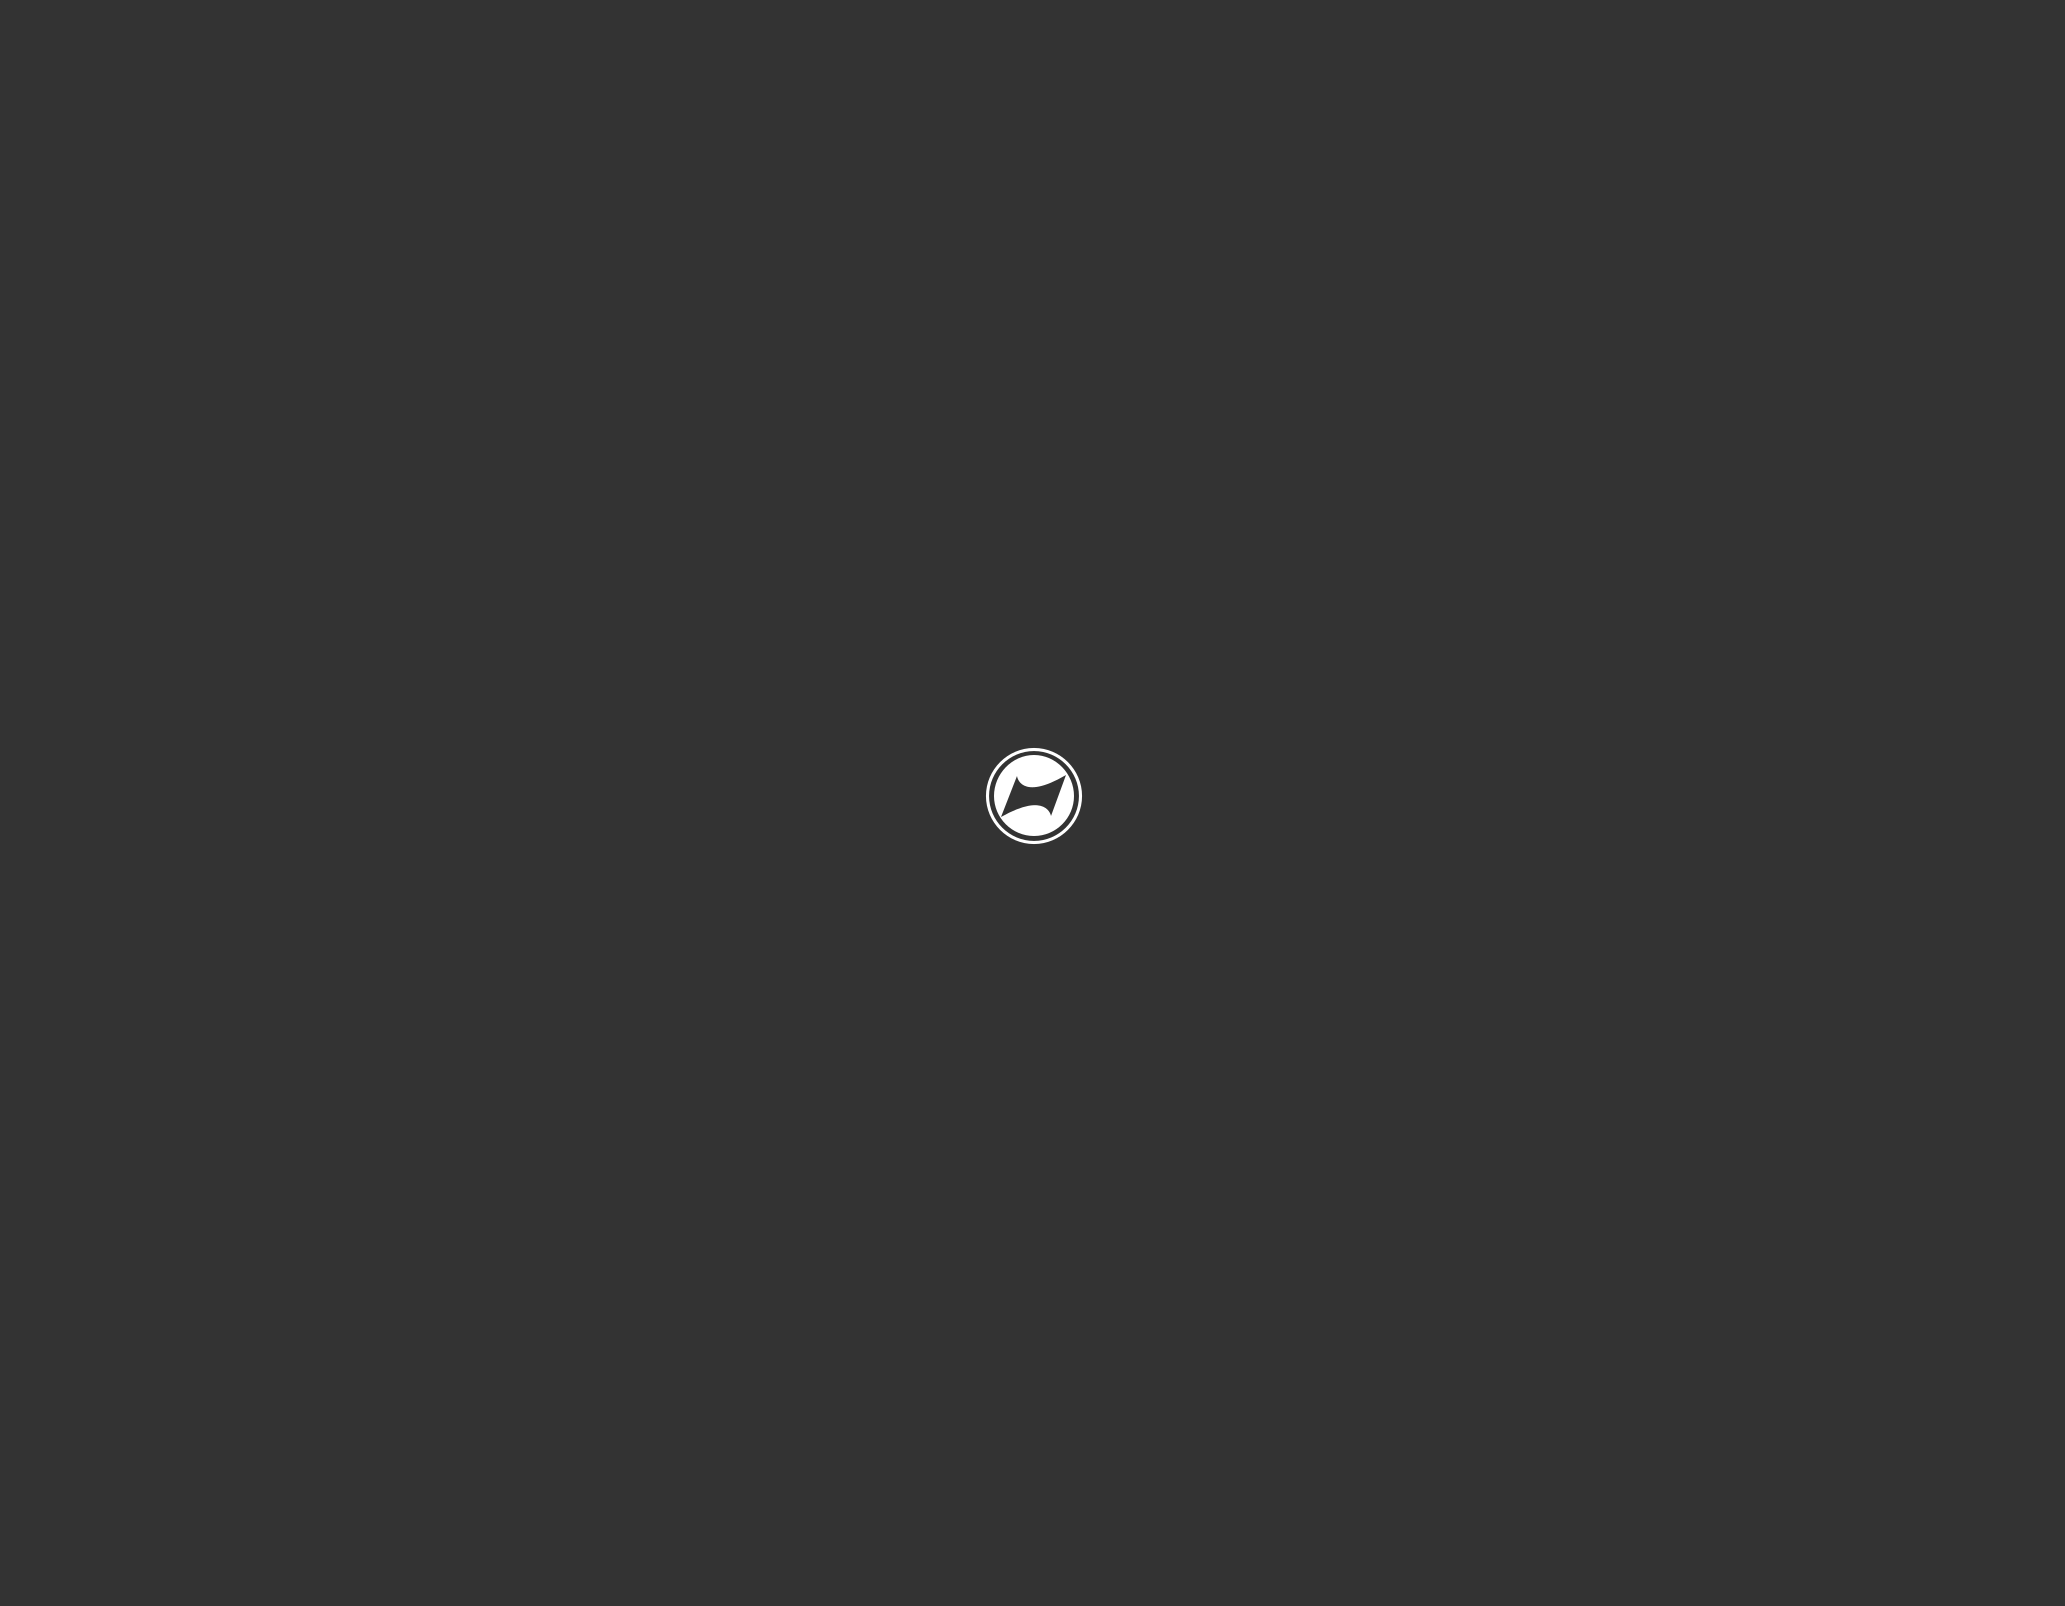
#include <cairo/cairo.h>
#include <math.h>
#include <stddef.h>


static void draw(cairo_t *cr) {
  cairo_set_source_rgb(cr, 51 / 255.0, 51 / 255.0, 51 / 255.0);
  cairo_paint(cr);
  cairo_set_source_rgb(cr, 1, 1, 1);
  cairo_new_path(cr);
  cairo_move_to(cr, 1074, 796);
  cairo_curve_to(cr, 1074, 818, 1056, 836, 1034, 836);
  cairo_curve_to(cr, 1012, 836, 994, 818, 994, 796);
  cairo_curve_to(cr, 994, 774, 1012, 755, 1034, 755);
  cairo_curve_to(cr, 1056, 755, 1074, 774, 1074, 796);
  cairo_close_path(cr);
  cairo_move_to(cr, 1001, 817);
  cairo_curve_to(cr, 1047, 791, 1051, 816, 1051, 816);
  cairo_line_to(cr, 1066, 775);
  cairo_curve_to(cr, 1020, 802, 1017, 776, 1017, 776);
  cairo_close_path(cr);
  cairo_fill(cr);
  cairo_new_path(cr);
  cairo_move_to(cr, 987.5, 796);
  cairo_curve_to(cr, 987.5, 770.5, 1008.5, 749.5, 1034, 749.5);
  cairo_curve_to(cr, 1059.5, 749.5, 1080.5, 770.5, 1080.5, 796);
  cairo_curve_to(cr, 1080.5, 821.5, 1059.5, 842.5, 1034, 842.5);
  cairo_curve_to(cr, 1008.5, 842.5, 987.5, 821.5, 987.5, 796);
  cairo_set_line_width(cr, 3.1);
  cairo_stroke(cr);
}

int main(void) {
  cairo_surface_t *surface = cairo_image_surface_create(CAIRO_FORMAT_RGB24, 2065, 1606);
  cairo_t *cr = cairo_create(surface);
  cairo_font_options_t *options = cairo_font_options_create();
  cairo_font_options_set_hint_metrics(options, CAIRO_HINT_METRICS_OFF);
  cairo_font_options_set_hint_style(options, CAIRO_HINT_STYLE_NONE);
  cairo_set_font_options(cr, options);
  cairo_set_miter_limit(cr, 4);
  draw(cr);
  cairo_surface_write_to_png(surface, "out.png");
  cairo_font_options_destroy(options);
  cairo_destroy(cr);
  cairo_surface_destroy(surface);
  return 0;
}
